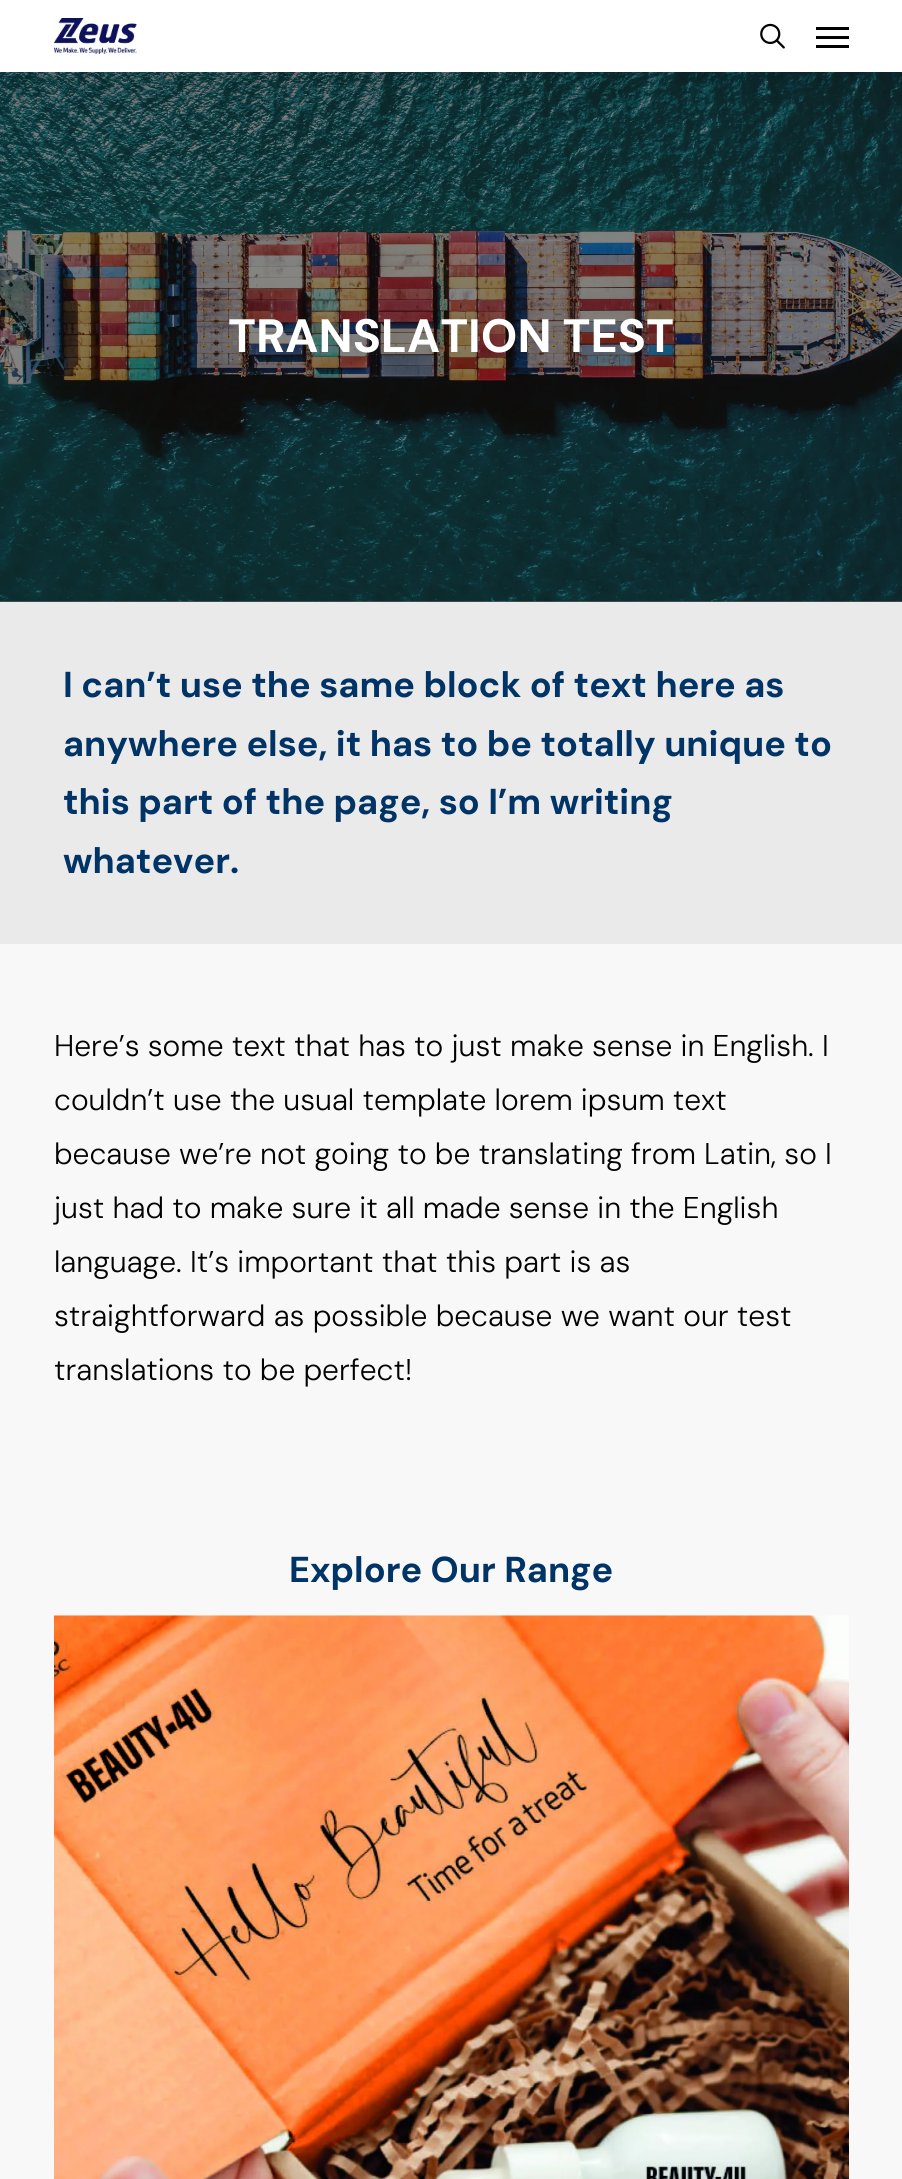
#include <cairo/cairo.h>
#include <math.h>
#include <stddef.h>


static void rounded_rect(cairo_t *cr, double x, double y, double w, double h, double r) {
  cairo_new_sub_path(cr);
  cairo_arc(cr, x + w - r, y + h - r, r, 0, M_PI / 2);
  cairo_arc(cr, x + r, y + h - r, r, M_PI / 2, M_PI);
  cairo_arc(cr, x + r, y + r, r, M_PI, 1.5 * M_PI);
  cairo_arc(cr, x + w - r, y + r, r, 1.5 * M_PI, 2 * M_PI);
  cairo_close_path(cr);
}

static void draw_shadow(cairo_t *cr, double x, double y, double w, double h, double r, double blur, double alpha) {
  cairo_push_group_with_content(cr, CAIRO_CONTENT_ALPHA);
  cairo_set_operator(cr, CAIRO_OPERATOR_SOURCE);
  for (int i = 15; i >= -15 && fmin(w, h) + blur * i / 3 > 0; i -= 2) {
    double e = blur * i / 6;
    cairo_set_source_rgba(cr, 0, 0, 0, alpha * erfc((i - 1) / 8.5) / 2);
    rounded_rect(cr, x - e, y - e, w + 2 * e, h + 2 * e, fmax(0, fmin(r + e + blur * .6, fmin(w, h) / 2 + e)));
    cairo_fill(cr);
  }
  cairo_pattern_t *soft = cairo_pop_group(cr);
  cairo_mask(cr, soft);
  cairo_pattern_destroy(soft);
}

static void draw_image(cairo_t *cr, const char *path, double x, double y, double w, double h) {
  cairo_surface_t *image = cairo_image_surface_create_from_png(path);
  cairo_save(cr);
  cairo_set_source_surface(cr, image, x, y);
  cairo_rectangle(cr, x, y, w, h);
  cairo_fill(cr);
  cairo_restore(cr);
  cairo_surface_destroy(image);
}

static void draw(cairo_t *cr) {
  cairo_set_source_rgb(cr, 1, 1, 1);
  cairo_paint(cr);
  cairo_set_source_rgb(cr, 110 / 255.0, 110 / 255.0, 106 / 255.0);
  cairo_rectangle(cr, 0, 601, 902, 1);
  cairo_fill(cr);
  draw_image(cr, "images/3.png", 0, 72, 902, 530);
  cairo_save(cr);
  cairo_rectangle(cr, 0, 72, 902, 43);
  cairo_clip(cr);
  cairo_set_source_rgb(cr, 0, 0, 0);
  draw_shadow(cr, 0, 5, 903, 72, 0, 34, 0.15);
  cairo_restore(cr);
  draw_image(cr, "images/1.png", 54, 18, 83, 36);
  draw_image(cr, "images/2.png", 760, 23, 25, 26);
  cairo_set_source_rgb(cr, 2 / 255.0, 2 / 255.0, 2 / 255.0);
  cairo_rectangle(cr, 816, 27, 33, 3);
  cairo_fill(cr);
  cairo_rectangle(cr, 816, 45, 33, 3);
  cairo_fill(cr);
  cairo_rectangle(cr, 816, 36, 33, 3);
  cairo_fill(cr);
  cairo_set_source_rgb(cr, 248 / 255.0, 248 / 255.0, 248 / 255.0);
  cairo_rectangle(cr, 0, 944, 902, 1235);
  cairo_fill(cr);
  cairo_set_source_rgb(cr, 234 / 255.0, 234 / 255.0, 234 / 255.0);
  cairo_rectangle(cr, 0, 602, 902, 342);
  cairo_fill(cr);
  draw_image(cr, "images/4.png", 54, 1615, 795, 564);
  cairo_select_font_face(cr, "DM Sans", CAIRO_FONT_SLANT_NORMAL, CAIRO_FONT_WEIGHT_BOLD);
  cairo_set_font_size(cr, 46.75);
  cairo_set_source_rgb(cr, 1, 1, 1);
  cairo_move_to(cr, 228, 352);
  cairo_show_text(cr, "TRANSLATION TEST");
  cairo_set_font_size(cr, 36);
  cairo_set_source_rgb(cr, 0, 51 / 255.0, 102 / 255.0);
  cairo_move_to(cr, 63, 697);
  cairo_show_text(cr, "I can’t use the same block of text here as");
  cairo_move_to(cr, 63, 756);
  cairo_show_text(cr, "anywhere else, it has to be totally unique to");
  cairo_move_to(cr, 63, 814);
  cairo_show_text(cr, "this part of the page, so I’m writing");
  cairo_move_to(cr, 63, 873);
  cairo_show_text(cr, "whatever.");
  cairo_select_font_face(cr, "DM Sans Light", CAIRO_FONT_SLANT_NORMAL, CAIRO_FONT_WEIGHT_NORMAL);
  cairo_set_font_size(cr, 30);
  cairo_set_source_rgb(cr, 2 / 255.0, 2 / 255.0, 2 / 255.0);
  cairo_move_to(cr, 54, 1056);
  cairo_show_text(cr, "Here’s some text that has to just make sense in English. I");
  cairo_move_to(cr, 54, 1110);
  cairo_show_text(cr, "couldn’t use the usual template lorem ipsum text");
  cairo_move_to(cr, 54, 1164);
  cairo_show_text(cr, "because we’re not going to be translating from Latin, so I");
  cairo_move_to(cr, 54, 1218);
  cairo_show_text(cr, "just had to make sure it all made sense in the English");
  cairo_move_to(cr, 54, 1272);
  cairo_show_text(cr, "language. It’s important that this part is as");
  cairo_move_to(cr, 54, 1326);
  cairo_show_text(cr, "straightforward as possible because we want our test");
  cairo_move_to(cr, 54, 1380);
  cairo_show_text(cr, "translations to be perfect!");
  cairo_select_font_face(cr, "DM Sans", CAIRO_FONT_SLANT_NORMAL, CAIRO_FONT_WEIGHT_BOLD);
  cairo_set_font_size(cr, 36);
  cairo_set_source_rgb(cr, 0, 51 / 255.0, 102 / 255.0);
  cairo_move_to(cr, 289, 1582);
  cairo_show_text(cr, "Explore Our Range");
}

int main(void) {
  cairo_surface_t *surface = cairo_image_surface_create(CAIRO_FORMAT_RGB24, 902, 2179);
  cairo_t *cr = cairo_create(surface);
  cairo_font_options_t *options = cairo_font_options_create();
  cairo_font_options_set_hint_metrics(options, CAIRO_HINT_METRICS_OFF);
  cairo_font_options_set_hint_style(options, CAIRO_HINT_STYLE_NONE);
  cairo_set_font_options(cr, options);
  cairo_set_miter_limit(cr, 4);
  draw(cr);
  cairo_surface_write_to_png(surface, "out.png");
  cairo_font_options_destroy(options);
  cairo_destroy(cr);
  cairo_surface_destroy(surface);
  return 0;
}
